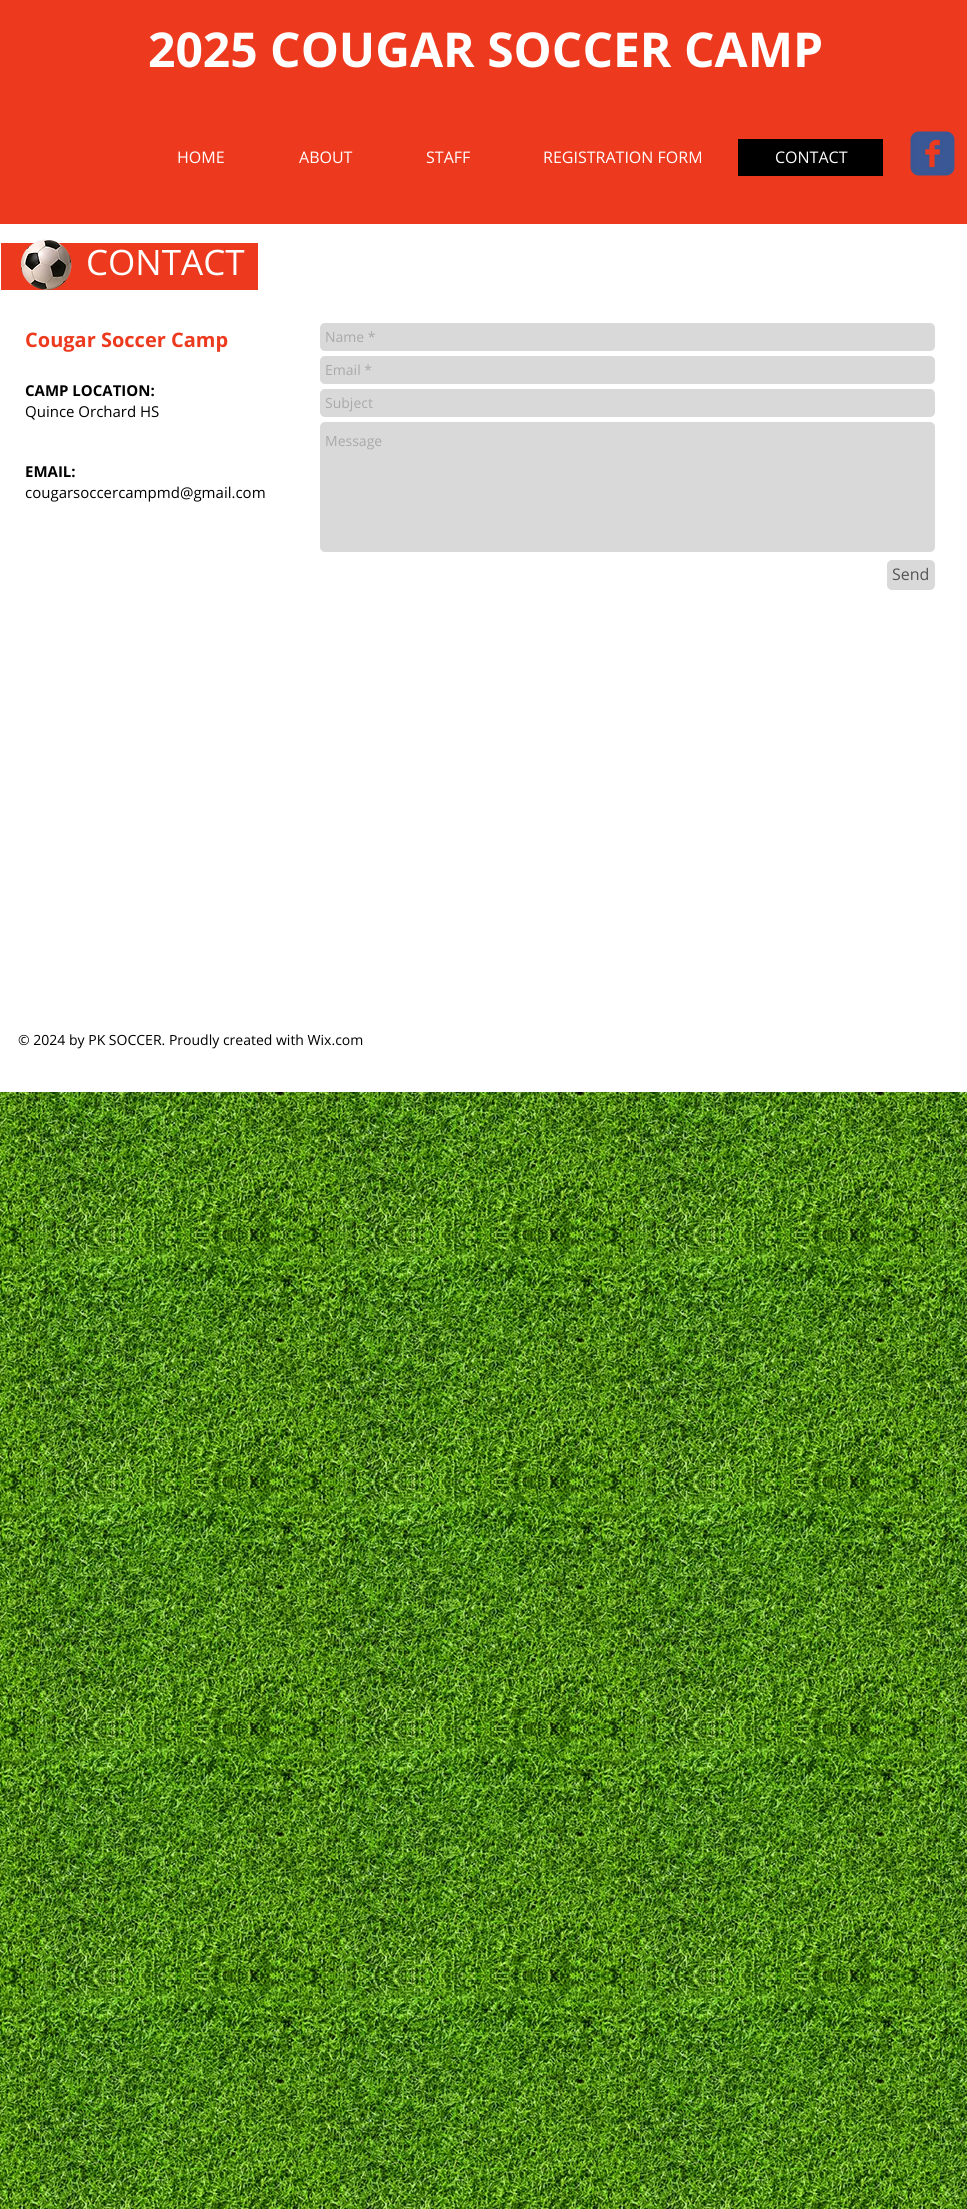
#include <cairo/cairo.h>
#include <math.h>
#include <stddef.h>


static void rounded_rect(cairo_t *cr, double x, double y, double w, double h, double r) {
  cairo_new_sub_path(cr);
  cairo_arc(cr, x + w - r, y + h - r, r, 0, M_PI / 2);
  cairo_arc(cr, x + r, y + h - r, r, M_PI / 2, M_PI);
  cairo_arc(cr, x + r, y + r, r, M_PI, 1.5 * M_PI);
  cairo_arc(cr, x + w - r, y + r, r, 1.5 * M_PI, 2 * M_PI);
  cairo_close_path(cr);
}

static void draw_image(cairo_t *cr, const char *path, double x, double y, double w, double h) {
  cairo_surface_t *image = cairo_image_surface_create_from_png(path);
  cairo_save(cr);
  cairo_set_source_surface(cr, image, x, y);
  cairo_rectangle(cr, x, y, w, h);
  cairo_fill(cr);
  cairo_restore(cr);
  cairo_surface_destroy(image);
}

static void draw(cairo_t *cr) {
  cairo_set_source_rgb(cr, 1, 1, 1);
  cairo_paint(cr);
  cairo_set_source_rgb(cr, 237 / 255.0, 58 / 255.0, 30 / 255.0);
  cairo_rectangle(cr, 0, 0, 967, 224);
  cairo_fill(cr);
  cairo_set_source_rgb(cr, 0, 0, 0);
  cairo_rectangle(cr, 738, 139, 145, 37);
  cairo_fill(cr);
  draw_image(cr, "images/1.png", 910, 131, 45, 45);
  cairo_set_source_rgb(cr, 237 / 255.0, 58 / 255.0, 30 / 255.0);
  cairo_rectangle(cr, 1, 243, 257, 47);
  cairo_fill(cr);
  draw_image(cr, "images/2.png", 20, 239, 52, 51);
  cairo_set_source_rgb(cr, 217 / 255.0, 217 / 255.0, 217 / 255.0);
  rounded_rect(cr, 320, 323, 615, 28, 5);
  cairo_fill(cr);
  rounded_rect(cr, 320, 356, 615, 28, 5);
  cairo_fill(cr);
  rounded_rect(cr, 320, 389, 615, 28, 5);
  cairo_fill(cr);
  rounded_rect(cr, 320, 422, 615, 130, 5);
  cairo_fill(cr);
  rounded_rect(cr, 887, 560, 48, 30, 5);
  cairo_fill(cr);
  draw_image(cr, "images/3.png", 0, 1092, 967, 1117);
  cairo_select_font_face(cr, "Open Sans", CAIRO_FONT_SLANT_NORMAL, CAIRO_FONT_WEIGHT_BOLD);
  cairo_set_font_size(cr, 48);
  cairo_set_source_rgb(cr, 1, 1, 1);
  cairo_move_to(cr, 148, 67);
  cairo_show_text(cr, "2025 COUGAR SOCCER CAMP");
  cairo_select_font_face(cr, "Open Sans", CAIRO_FONT_SLANT_NORMAL, CAIRO_FONT_WEIGHT_NORMAL);
  cairo_set_font_size(cr, 16);
  cairo_move_to(cr, 177, 163);
  cairo_show_text(cr, "HOME");
  cairo_move_to(cr, 299, 163);
  cairo_show_text(cr, "ABOUT");
  cairo_move_to(cr, 426, 163);
  cairo_show_text(cr, "STAFF");
  cairo_move_to(cr, 543, 163);
  cairo_show_text(cr, "REGISTRATION FORM");
  cairo_move_to(cr, 775, 163);
  cairo_show_text(cr, "CONTACT");
  cairo_set_font_size(cr, 35);
  cairo_move_to(cr, 86, 275);
  cairo_show_text(cr, "CONTACT");
  cairo_select_font_face(cr, "Open Sans", CAIRO_FONT_SLANT_NORMAL, CAIRO_FONT_WEIGHT_BOLD);
  cairo_set_font_size(cr, 20);
  cairo_set_source_rgb(cr, 237 / 255.0, 58 / 255.0, 30 / 255.0);
  cairo_move_to(cr, 25, 347);
  cairo_show_text(cr, "Cougar Soccer Camp");
  cairo_set_font_size(cr, 15);
  cairo_set_source_rgb(cr, 0, 0, 0);
  cairo_move_to(cr, 25, 396);
  cairo_show_text(cr, "CAMP LOCATION:");
  cairo_select_font_face(cr, "Open Sans", CAIRO_FONT_SLANT_NORMAL, CAIRO_FONT_WEIGHT_NORMAL);
  cairo_move_to(cr, 25, 417);
  cairo_show_text(cr, "Quince Orchard HS");
  cairo_select_font_face(cr, "Open Sans", CAIRO_FONT_SLANT_NORMAL, CAIRO_FONT_WEIGHT_BOLD);
  cairo_move_to(cr, 25, 477);
  cairo_show_text(cr, "EMAIL:");
  cairo_select_font_face(cr, "Open Sans", CAIRO_FONT_SLANT_NORMAL, CAIRO_FONT_WEIGHT_NORMAL);
  cairo_move_to(cr, 25, 498);
  cairo_show_text(cr, "cougarsoccercampmd@gmail.com");
  cairo_set_font_size(cr, 14);
  cairo_set_source_rgb(cr, 169 / 255.0, 169 / 255.0, 169 / 255.0);
  cairo_move_to(cr, 325, 342);
  cairo_show_text(cr, "Name *");
  cairo_move_to(cr, 325, 375);
  cairo_show_text(cr, "Email *");
  cairo_move_to(cr, 325, 408);
  cairo_show_text(cr, "Subject");
  cairo_move_to(cr, 325, 446);
  cairo_show_text(cr, "Message");
  cairo_set_font_size(cr, 16);
  cairo_set_source_rgb(cr, 85 / 255.0, 85 / 255.0, 85 / 255.0);
  cairo_move_to(cr, 892, 580);
  cairo_show_text(cr, "Send");
  cairo_set_font_size(cr, 14);
  cairo_set_source_rgb(cr, 0, 0, 0);
  cairo_move_to(cr, 18, 1045);
  cairo_show_text(cr, "© 2024 by PK SOCCER. Proudly created with Wix.com");
}

int main(void) {
  cairo_surface_t *surface = cairo_image_surface_create(CAIRO_FORMAT_RGB24, 967, 2209);
  cairo_t *cr = cairo_create(surface);
  cairo_font_options_t *options = cairo_font_options_create();
  cairo_font_options_set_hint_metrics(options, CAIRO_HINT_METRICS_OFF);
  cairo_font_options_set_hint_style(options, CAIRO_HINT_STYLE_NONE);
  cairo_set_font_options(cr, options);
  cairo_set_miter_limit(cr, 4);
  draw(cr);
  cairo_surface_write_to_png(surface, "out.png");
  cairo_font_options_destroy(options);
  cairo_destroy(cr);
  cairo_surface_destroy(surface);
  return 0;
}
